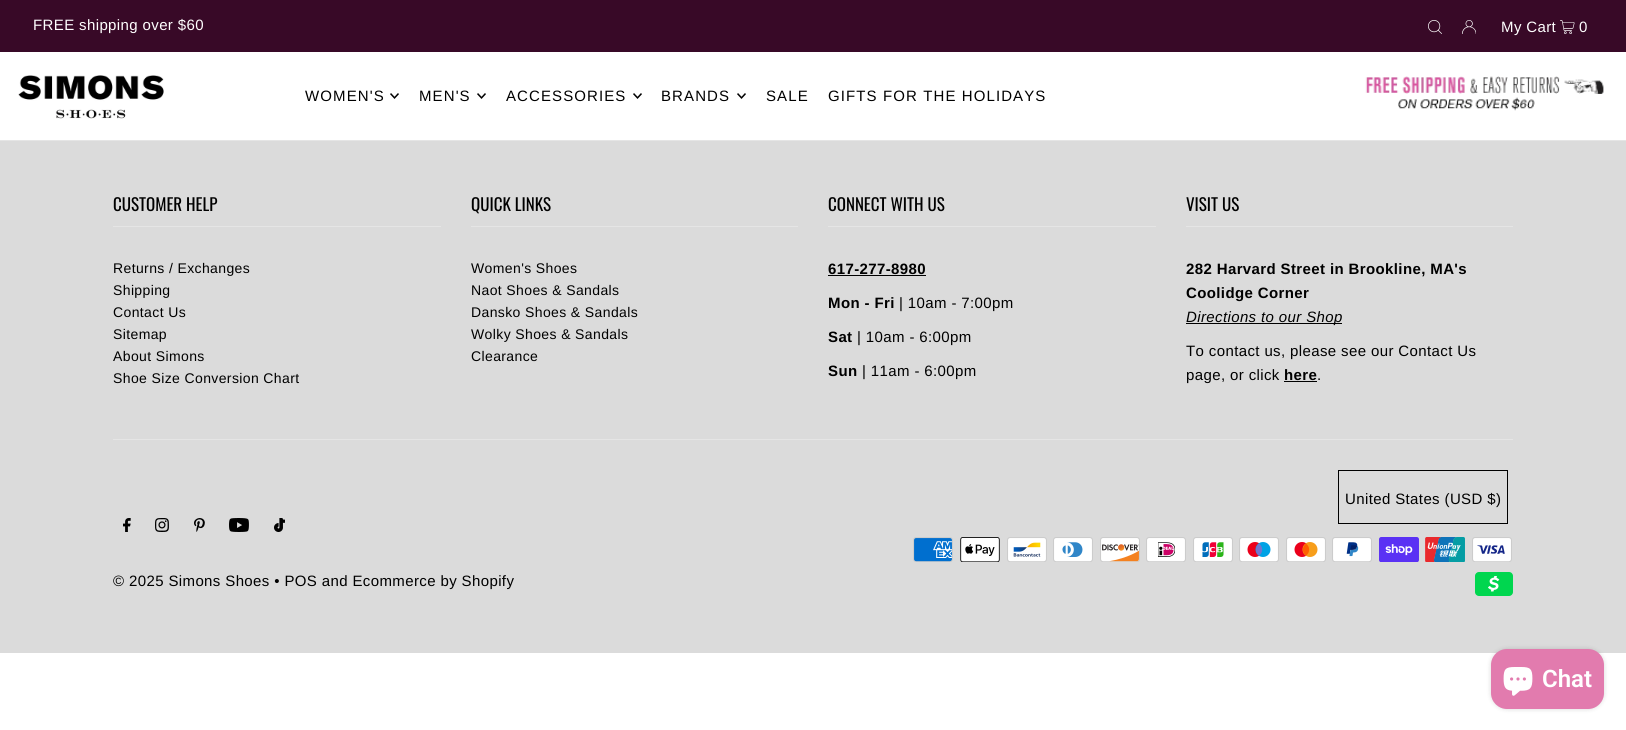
#include <cairo/cairo.h>
#include <math.h>
#include <stddef.h>


static void draw_spaced(cairo_t *cr, double x, double y, const char *s, double letter, double word) {
  cairo_move_to(cr, x, y);
  while (*s) {
    char ch[5] = {0};
    int n = 0;
    do ch[n++] = *s++; while ((*s & 0xC0) == 0x80);
    cairo_show_text(cr, ch);
    cairo_rel_move_to(cr, letter + word * (*ch == ' '), 0);
  }
}

static void rounded_rect(cairo_t *cr, double x, double y, double w, double h, double r) {
  cairo_new_sub_path(cr);
  cairo_arc(cr, x + w - r, y + h - r, r, 0, M_PI / 2);
  cairo_arc(cr, x + r, y + h - r, r, M_PI / 2, M_PI);
  cairo_arc(cr, x + r, y + r, r, M_PI, 1.5 * M_PI);
  cairo_arc(cr, x + w - r, y + r, r, 1.5 * M_PI, 2 * M_PI);
  cairo_close_path(cr);
}

static void draw_shadow(cairo_t *cr, double x, double y, double w, double h, double r, double blur, double alpha) {
  cairo_push_group_with_content(cr, CAIRO_CONTENT_ALPHA);
  cairo_set_operator(cr, CAIRO_OPERATOR_SOURCE);
  for (int i = 15; i >= -15 && fmin(w, h) + blur * i / 3 > 0; i -= 2) {
    double e = blur * i / 6;
    cairo_set_source_rgba(cr, 0, 0, 0, alpha * erfc((i - 1) / 8.5) / 2);
    rounded_rect(cr, x - e, y - e, w + 2 * e, h + 2 * e, fmax(0, fmin(r + e + blur * .6, fmin(w, h) / 2 + e)));
    cairo_fill(cr);
  }
  cairo_pattern_t *soft = cairo_pop_group(cr);
  cairo_mask(cr, soft);
  cairo_pattern_destroy(soft);
}

static void draw_image(cairo_t *cr, const char *path, double x, double y, double w, double h) {
  cairo_surface_t *image = cairo_image_surface_create_from_png(path);
  cairo_save(cr);
  cairo_set_source_surface(cr, image, x, y);
  cairo_rectangle(cr, x, y, w, h);
  cairo_fill(cr);
  cairo_restore(cr);
  cairo_surface_destroy(image);
}

static void draw(cairo_t *cr) {
  cairo_set_source_rgb(cr, 1, 1, 1);
  cairo_paint(cr);
  cairo_set_source_rgb(cr, 56 / 255.0, 9 / 255.0, 39 / 255.0);
  cairo_rectangle(cr, 0, 0, 1626, 52);
  cairo_fill(cr);
  draw_image(cr, "images/1.png", 1428, 20, 14, 14);
  draw_image(cr, "images/2.png", 1462, 20, 14, 14);
  draw_image(cr, "images/3.png", 1560, 20, 15, 14);
  draw_image(cr, "images/4.png", 18, 75, 146, 44);
  draw_image(cr, "images/5.png", 390, 93, 9, 6);
  draw_image(cr, "images/5.png", 477, 93, 9, 6);
  draw_image(cr, "images/5.png", 633, 93, 9, 6);
  draw_image(cr, "images/5.png", 737, 93, 9, 6);
  draw_image(cr, "images/6.png", 1365, 76, 239, 35);
  cairo_set_source_rgb(cr, 219 / 255.0, 219 / 255.0, 219 / 255.0);
  cairo_rectangle(cr, 0, 141, 1626, 512);
  cairo_fill(cr);
  cairo_set_source_rgb(cr, 229 / 255.0, 229 / 255.0, 229 / 255.0);
  cairo_rectangle(cr, 0, 140, 1626, 1);
  cairo_fill(cr);
  cairo_rectangle(cr, 113, 226, 328, 1);
  cairo_fill(cr);
  cairo_rectangle(cr, 471, 226, 327, 1);
  cairo_fill(cr);
  cairo_rectangle(cr, 828, 226, 328, 1);
  cairo_fill(cr);
  cairo_set_source_rgb(cr, 0, 0, 0);
  cairo_rectangle(cr, 828, 275, 98, 1);
  cairo_fill(cr);
  cairo_set_source_rgb(cr, 229 / 255.0, 229 / 255.0, 229 / 255.0);
  cairo_rectangle(cr, 1186, 226, 327, 1);
  cairo_fill(cr);
  cairo_set_source_rgb(cr, 0, 0, 0);
  cairo_rectangle(cr, 1186, 323, 156, 1);
  cairo_fill(cr);
  cairo_rectangle(cr, 1284, 381, 33, 1);
  cairo_fill(cr);
  cairo_set_source_rgb(cr, 229 / 255.0, 229 / 255.0, 229 / 255.0);
  cairo_rectangle(cr, 113, 439, 1400, 1);
  cairo_fill(cr);
  cairo_rectangle(cr, 1338.5, 470.5, 169, 53);
  cairo_set_source_rgb(cr, 0, 0, 0);
  cairo_set_line_width(cr, 1);
  cairo_stroke(cr);
  draw_image(cr, "images/7.png", 913, 537, 40, 25);
  draw_image(cr, "images/8.png", 960, 537, 40, 25);
  draw_image(cr, "images/9.png", 1007, 537, 40, 25);
  draw_image(cr, "images/10.png", 1053, 537, 40, 25);
  draw_image(cr, "images/11.png", 1100, 537, 40, 25);
  draw_image(cr, "images/12.png", 1146, 537, 40, 25);
  draw_image(cr, "images/13.png", 1193, 537, 40, 25);
  draw_image(cr, "images/14.png", 1239, 537, 40, 25);
  draw_image(cr, "images/15.png", 1286, 537, 40, 25);
  draw_image(cr, "images/16.png", 1332, 537, 40, 25);
  draw_image(cr, "images/17.png", 1379, 537, 40, 25);
  draw_image(cr, "images/18.png", 1425, 537, 40, 25);
  draw_image(cr, "images/19.png", 1472, 537, 40, 25);
  draw_image(cr, "images/20.png", 1475, 572, 38, 24);
  draw_image(cr, "images/21.png", 123, 518, 8, 14);
  draw_image(cr, "images/22.png", 155, 518, 14, 14);
  draw_image(cr, "images/23.png", 194, 518, 11, 14);
  draw_image(cr, "images/24.png", 229, 518, 20, 14);
  draw_image(cr, "images/25.png", 274, 518, 11, 14);
  cairo_set_source_rgb(cr, 0, 0, 0);
  draw_shadow(cr, 1491, 649, 113, 60, 16, 2.5, 0.15);
  cairo_set_source_rgb(cr, 226 / 255.0, 123 / 255.0, 174 / 255.0);
  rounded_rect(cr, 1491, 649, 113, 60, 16);
  cairo_fill(cr);
  draw_image(cr, "images/26.png", 1503, 667, 30, 29);
  cairo_select_font_face(cr, "Liberation Sans", CAIRO_FONT_SLANT_NORMAL, CAIRO_FONT_WEIGHT_NORMAL);
  cairo_set_font_size(cr, 15);
  cairo_set_source_rgb(cr, 1, 1, 1);
  draw_spaced(cr, 33, 30, "FREE shipping over $60", 0.38, 0);
  draw_spaced(cr, 1501, 32, "My Cart", 0.38, 0);
  draw_spaced(cr, 1579, 32, "0", 0.38, 0);
  cairo_set_source_rgb(cr, 0, 0, 0);
  draw_spaced(cr, 305, 101, "WOMEN'S", 1.1, 0);
  draw_spaced(cr, 419, 101, "MEN'S", 1.1, 0);
  draw_spaced(cr, 506, 101, "ACCESSORIES", 1.1, 0);
  draw_spaced(cr, 661, 101, "BRANDS", 1.1, 0);
  draw_spaced(cr, 766, 101, "SALE", 1.1, 0);
  draw_spaced(cr, 828, 101, "GIFTS FOR THE HOLIDAYS", 1.1, 0);
  cairo_select_font_face(cr, "Oswald", CAIRO_FONT_SLANT_NORMAL, CAIRO_FONT_WEIGHT_NORMAL);
  cairo_set_font_size(cr, 17);
  cairo_move_to(cr, 113, 211);
  cairo_show_text(cr, "CUSTOMER HELP");
  cairo_select_font_face(cr, "Liberation Sans", CAIRO_FONT_SLANT_NORMAL, CAIRO_FONT_WEIGHT_NORMAL);
  cairo_set_font_size(cr, 14);
  draw_spaced(cr, 113, 273, "Returns / Exchanges", 0.38, 0);
  draw_spaced(cr, 113, 295, "Shipping", 0.38, 0);
  draw_spaced(cr, 113, 317, "Contact Us", 0.38, 0);
  draw_spaced(cr, 113, 339, "Sitemap", 0.38, 0);
  draw_spaced(cr, 113, 361, "About Simons", 0.38, 0);
  draw_spaced(cr, 113, 383, "Shoe Size Conversion Chart", 0.38, 0);
  cairo_select_font_face(cr, "Oswald", CAIRO_FONT_SLANT_NORMAL, CAIRO_FONT_WEIGHT_NORMAL);
  cairo_set_font_size(cr, 17);
  cairo_move_to(cr, 471, 211);
  cairo_show_text(cr, "QUICK LINKS");
  cairo_select_font_face(cr, "Liberation Sans", CAIRO_FONT_SLANT_NORMAL, CAIRO_FONT_WEIGHT_NORMAL);
  cairo_set_font_size(cr, 14);
  draw_spaced(cr, 471, 273, "Women's Shoes", 0.38, 0);
  draw_spaced(cr, 471, 295, "Naot Shoes & Sandals", 0.38, 0);
  draw_spaced(cr, 471, 317, "Dansko Shoes & Sandals", 0.38, 0);
  draw_spaced(cr, 471, 339, "Wolky Shoes & Sandals", 0.38, 0);
  draw_spaced(cr, 471, 361, "Clearance", 0.38, 0);
  cairo_select_font_face(cr, "Oswald", CAIRO_FONT_SLANT_NORMAL, CAIRO_FONT_WEIGHT_NORMAL);
  cairo_set_font_size(cr, 17);
  cairo_move_to(cr, 828, 211);
  cairo_show_text(cr, "CONNECT WITH US");
  cairo_select_font_face(cr, "Liberation Sans", CAIRO_FONT_SLANT_NORMAL, CAIRO_FONT_WEIGHT_BOLD);
  cairo_set_font_size(cr, 15);
  draw_spaced(cr, 828, 274, "617-277-8980", 0.38, 0);
  draw_spaced(cr, 828, 308, "Mon - Fri", 0.38, 0);
  cairo_select_font_face(cr, "Liberation Sans", CAIRO_FONT_SLANT_NORMAL, CAIRO_FONT_WEIGHT_NORMAL);
  draw_spaced(cr, 899, 308, "| 10am - 7:00pm", 0.38, 0);
  cairo_select_font_face(cr, "Liberation Sans", CAIRO_FONT_SLANT_NORMAL, CAIRO_FONT_WEIGHT_BOLD);
  draw_spaced(cr, 828, 342, "Sat", 0.38, 0);
  cairo_select_font_face(cr, "Liberation Sans", CAIRO_FONT_SLANT_NORMAL, CAIRO_FONT_WEIGHT_NORMAL);
  draw_spaced(cr, 857, 342, "| 10am - 6:00pm", 0.38, 0);
  cairo_select_font_face(cr, "Liberation Sans", CAIRO_FONT_SLANT_NORMAL, CAIRO_FONT_WEIGHT_BOLD);
  draw_spaced(cr, 828, 376, "Sun", 0.38, 0);
  cairo_select_font_face(cr, "Liberation Sans", CAIRO_FONT_SLANT_NORMAL, CAIRO_FONT_WEIGHT_NORMAL);
  draw_spaced(cr, 862, 376, "| 11am - 6:00pm", 0.38, 0);
  cairo_select_font_face(cr, "Oswald", CAIRO_FONT_SLANT_NORMAL, CAIRO_FONT_WEIGHT_NORMAL);
  cairo_set_font_size(cr, 17);
  cairo_move_to(cr, 1186, 211);
  cairo_show_text(cr, "VISIT US");
  cairo_select_font_face(cr, "Liberation Sans", CAIRO_FONT_SLANT_NORMAL, CAIRO_FONT_WEIGHT_BOLD);
  cairo_set_font_size(cr, 15);
  draw_spaced(cr, 1186, 274, "282 Harvard Street in Brookline, MA's", 0.38, 0);
  draw_spaced(cr, 1186, 298, "Coolidge Corner", 0.38, 0);
  cairo_select_font_face(cr, "Liberation Sans", CAIRO_FONT_SLANT_ITALIC, CAIRO_FONT_WEIGHT_NORMAL);
  draw_spaced(cr, 1186, 322, "Directions to our Shop", 0.38, 0);
  cairo_select_font_face(cr, "Liberation Sans", CAIRO_FONT_SLANT_NORMAL, CAIRO_FONT_WEIGHT_NORMAL);
  draw_spaced(cr, 1186, 356, "To contact us, please see our Contact Us", 0.38, 0);
  draw_spaced(cr, 1186, 380, "page, or click", 0.38, 0);
  cairo_select_font_face(cr, "Liberation Sans", CAIRO_FONT_SLANT_NORMAL, CAIRO_FONT_WEIGHT_BOLD);
  draw_spaced(cr, 1284, 380, "here", 0.38, 0);
  cairo_select_font_face(cr, "Liberation Sans", CAIRO_FONT_SLANT_NORMAL, CAIRO_FONT_WEIGHT_NORMAL);
  draw_spaced(cr, 1317, 380, ".", 0.38, 0);
  draw_spaced(cr, 1345, 504, "United States (USD $)", 0.38, 0);
  draw_spaced(cr, 113, 586, "© 2025 Simons Shoes • POS and Ecommerce by Shopify", 0.38, 0);
  cairo_select_font_face(cr, "Roboto SemiBold", CAIRO_FONT_SLANT_NORMAL, CAIRO_FONT_WEIGHT_NORMAL);
  cairo_set_font_size(cr, 24);
  cairo_set_source_rgb(cr, 1, 1, 1);
  cairo_move_to(cr, 1542, 687);
  cairo_show_text(cr, "Chat");
}

int main(void) {
  cairo_surface_t *surface = cairo_image_surface_create(CAIRO_FORMAT_RGB24, 1626, 730);
  cairo_t *cr = cairo_create(surface);
  cairo_font_options_t *options = cairo_font_options_create();
  cairo_font_options_set_hint_metrics(options, CAIRO_HINT_METRICS_OFF);
  cairo_font_options_set_hint_style(options, CAIRO_HINT_STYLE_NONE);
  cairo_set_font_options(cr, options);
  cairo_set_miter_limit(cr, 4);
  draw(cr);
  cairo_surface_write_to_png(surface, "out.png");
  cairo_font_options_destroy(options);
  cairo_destroy(cr);
  cairo_surface_destroy(surface);
  return 0;
}
